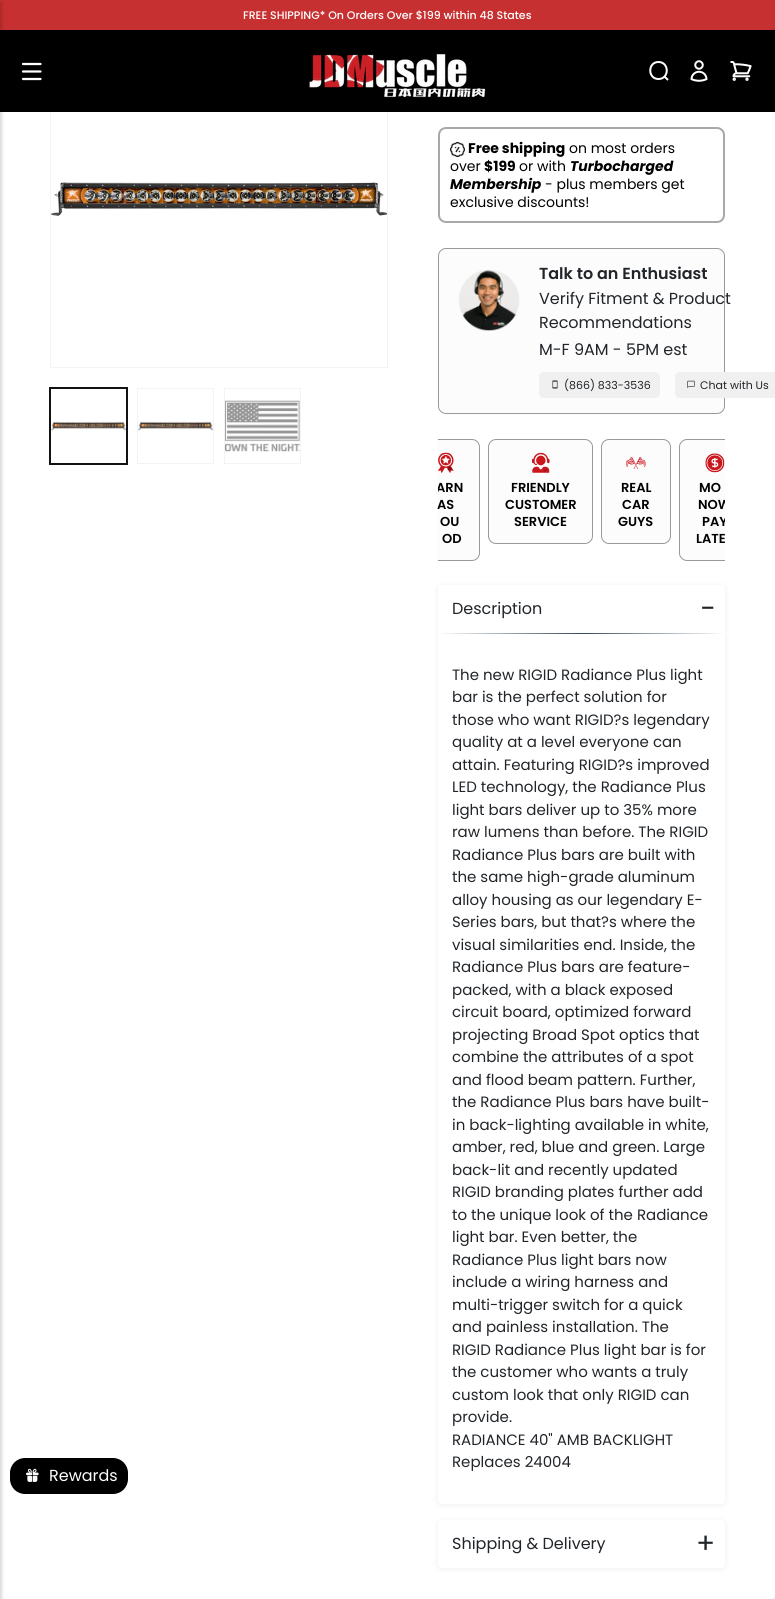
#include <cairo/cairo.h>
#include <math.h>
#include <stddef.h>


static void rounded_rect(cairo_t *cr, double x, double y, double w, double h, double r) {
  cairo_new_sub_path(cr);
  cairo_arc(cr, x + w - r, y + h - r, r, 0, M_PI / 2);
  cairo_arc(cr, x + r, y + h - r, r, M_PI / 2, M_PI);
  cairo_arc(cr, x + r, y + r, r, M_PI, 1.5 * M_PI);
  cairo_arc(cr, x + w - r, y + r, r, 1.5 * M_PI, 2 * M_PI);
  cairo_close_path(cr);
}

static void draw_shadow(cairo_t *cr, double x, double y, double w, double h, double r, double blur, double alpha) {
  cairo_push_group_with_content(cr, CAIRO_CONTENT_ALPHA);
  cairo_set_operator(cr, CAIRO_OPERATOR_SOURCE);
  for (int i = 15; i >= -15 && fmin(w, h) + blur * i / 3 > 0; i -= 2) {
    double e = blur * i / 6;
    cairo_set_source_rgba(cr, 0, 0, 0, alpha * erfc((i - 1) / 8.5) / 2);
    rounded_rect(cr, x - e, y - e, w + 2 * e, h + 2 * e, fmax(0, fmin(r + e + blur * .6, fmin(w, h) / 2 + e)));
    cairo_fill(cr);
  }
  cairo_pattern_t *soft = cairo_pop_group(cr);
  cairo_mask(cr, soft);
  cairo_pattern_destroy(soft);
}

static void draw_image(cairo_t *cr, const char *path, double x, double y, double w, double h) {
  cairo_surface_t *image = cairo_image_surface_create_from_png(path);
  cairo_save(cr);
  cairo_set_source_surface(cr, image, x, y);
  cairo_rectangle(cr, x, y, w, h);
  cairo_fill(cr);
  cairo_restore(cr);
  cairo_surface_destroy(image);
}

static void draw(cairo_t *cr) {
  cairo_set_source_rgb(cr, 1, 1, 1);
  cairo_paint(cr);
  cairo_rectangle(cr, 50.5, 30.5, 337, 337);
  cairo_set_source_rgb(cr, 243 / 255.0, 243 / 255.0, 243 / 255.0);
  cairo_set_line_width(cr, 1);
  cairo_stroke(cr);
  cairo_set_source_rgb(cr, 0, 0, 0);
  cairo_rectangle(cr, 0, 30, 775, 82);
  cairo_fill(cr);
  cairo_set_source_rgb(cr, 199 / 255.0, 48 / 255.0, 48 / 255.0);
  cairo_rectangle(cr, 0, 0, 775, 30);
  cairo_fill(cr);
  cairo_set_source_rgb(cr, 0, 0, 0);
  draw_shadow(cr, -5, 2, 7, 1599, 0, 1.5, 0.15);
  cairo_new_path(cr);
  cairo_move_to(cr, 23, 64);
  cairo_line_to(cr, 40.5, 64);
  cairo_move_to(cr, 23, 71.5);
  cairo_line_to(cr, 40.5, 71.5);
  cairo_move_to(cr, 23, 79);
  cairo_line_to(cr, 40.5, 79);
  cairo_set_source_rgb(cr, 1, 1, 1);
  cairo_set_line_width(cr, 2.2);
  cairo_set_line_cap(cr, CAIRO_LINE_CAP_ROUND);
  cairo_stroke(cr);
  draw_image(cr, "images/1.png", 309, 54, 177, 44);
  cairo_new_path(cr);
  cairo_move_to(cr, 658.5, 79);
  cairo_curve_to(cr, 669.5, 79, 669.5, 62, 658.5, 62);
  cairo_curve_to(cr, 647.5, 62, 647.5, 79, 658.5, 79);
  cairo_close_path(cr);
  cairo_move_to(cr, 664.5, 76.5);
  cairo_line_to(cr, 668, 80);
  cairo_set_line_width(cr, 2);
  cairo_set_line_cap(cr, CAIRO_LINE_CAP_BUTT);
  cairo_stroke(cr);
  draw_image(cr, "images/2.png", 690, 60, 18, 22);
  draw_image(cr, "images/3.png", 730, 61, 22, 20);
  cairo_set_source_rgb(cr, 0, 0, 0);
  rounded_rect(cr, 10, 1458, 118, 36, 15);
  cairo_fill(cr);
  draw_image(cr, "images/4.png", 26, 1468, 13, 14);
  draw_image(cr, "images/5.png", 51, 182, 336, 34);
  cairo_rectangle(cr, 49.5, 387.5, 78, 77);
  cairo_set_source_rgb(cr, 18 / 255.0, 18 / 255.0, 18 / 255.0);
  cairo_set_line_width(cr, 1);
  cairo_stroke(cr);
  cairo_rectangle(cr, 50.5, 388.5, 76, 75);
  cairo_stroke(cr);
  draw_image(cr, "images/6.png", 51, 421, 75, 10);
  cairo_rectangle(cr, 137.5, 388.5, 76, 75);
  cairo_set_source_rgb(cr, 243 / 255.0, 243 / 255.0, 243 / 255.0);
  cairo_stroke(cr);
  draw_image(cr, "images/7.png", 138, 421, 75, 10);
  cairo_rectangle(cr, 224.5, 388.5, 76, 75);
  cairo_stroke(cr);
  draw_image(cr, "images/8.png", 225, 400, 75, 52);
  rounded_rect(cr, 439, 128, 285, 94, 7);
  cairo_set_source_rgb(cr, 168 / 255.0, 168 / 255.0, 168 / 255.0);
  cairo_set_line_width(cr, 2);
  cairo_stroke(cr);
  draw_image(cr, "images/9.png", 450, 142, 15, 15);
  cairo_set_source_rgb(cr, 252 / 255.0, 252 / 255.0, 252 / 255.0);
  rounded_rect(cr, 438.5, 248.5, 286, 165, 7.5);
  cairo_fill_preserve(cr);
  cairo_set_source_rgb(cr, 153 / 255.0, 153 / 255.0, 153 / 255.0);
  cairo_set_line_width(cr, 1);
  cairo_stroke(cr);
  draw_image(cr, "images/10.png", 458, 269, 62, 62);
  cairo_set_source_rgb(cr, 240 / 255.0, 240 / 255.0, 240 / 255.0);
  rounded_rect(cr, 539, 372, 121, 26, 5);
  cairo_fill(cr);
  draw_image(cr, "images/11.png", 552, 380, 6, 9);
  rounded_rect(cr, 675, 372, 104, 26, 5);
  cairo_fill(cr);
  draw_image(cr, "images/12.png", 687, 380, 8, 9);
  cairo_set_source_rgb(cr, 252 / 255.0, 252 / 255.0, 252 / 255.0);
  cairo_new_path(cr);
  cairo_move_to(cr, 438, 439);
  cairo_line_to(cr, 472, 439);
  cairo_curve_to(cr, 476.5, 439, 480, 442.5, 480, 447);
  cairo_line_to(cr, 480, 553);
  cairo_curve_to(cr, 480, 557.5, 476.5, 561, 472, 561);
  cairo_line_to(cr, 438, 561);
  cairo_close_path(cr);
  cairo_fill(cr);
  cairo_save(cr);
  cairo_rectangle(cr, 438, 439, 287, 122);
  cairo_clip(cr);
  rounded_rect(cr, 412.5, 439.5, 67, 121, 7.5);
  cairo_set_source_rgb(cr, 153 / 255.0, 153 / 255.0, 153 / 255.0);
  cairo_stroke(cr);
  cairo_restore(cr);
  draw_image(cr, "images/13.png", 438, 452, 16, 21);
  rounded_rect(cr, 488.5, 439.5, 104, 104, 7.5);
  cairo_fill_preserve(cr);
  cairo_set_source_rgb(cr, 153 / 255.0, 153 / 255.0, 153 / 255.0);
  cairo_stroke(cr);
  draw_image(cr, "images/14.png", 532, 452, 18, 21);
  cairo_set_source_rgb(cr, 252 / 255.0, 252 / 255.0, 252 / 255.0);
  rounded_rect(cr, 601.5, 439.5, 69, 104, 7.5);
  cairo_fill_preserve(cr);
  cairo_set_source_rgb(cr, 153 / 255.0, 153 / 255.0, 153 / 255.0);
  cairo_stroke(cr);
  draw_image(cr, "images/15.png", 625, 456, 21, 13);
  cairo_set_source_rgb(cr, 252 / 255.0, 252 / 255.0, 252 / 255.0);
  cairo_new_path(cr);
  cairo_move_to(cr, 687, 439);
  cairo_line_to(cr, 725, 439);
  cairo_line_to(cr, 725, 561);
  cairo_line_to(cr, 687, 561);
  cairo_curve_to(cr, 682.5, 561, 679, 557.5, 679, 553);
  cairo_line_to(cr, 679, 447);
  cairo_curve_to(cr, 679, 442.5, 682.5, 439, 687, 439);
  cairo_close_path(cr);
  cairo_fill(cr);
  cairo_save(cr);
  cairo_rectangle(cr, 438, 439, 287, 122);
  cairo_clip(cr);
  rounded_rect(cr, 679.5, 439.5, 71, 121, 7.5);
  cairo_set_source_rgb(cr, 153 / 255.0, 153 / 255.0, 153 / 255.0);
  cairo_stroke(cr);
  cairo_restore(cr);
  draw_image(cr, "images/16.png", 705, 453, 20, 20);
  cairo_set_source_rgb(cr, 0, 0, 0);
  draw_shadow(cr, 438, 586, 287, 919, 4, 3.5, 0.07);
  cairo_set_source_rgb(cr, 1, 1, 1);
  rounded_rect(cr, 438, 585, 287, 919, 4);
  cairo_fill(cr);
  draw_image(cr, "images/17.png", 440, 633, 283, 1);
  cairo_set_source_rgb(cr, 0, 0, 0);
  draw_shadow(cr, 438, 1521, 287, 48, 4, 3.5, 0.07);
  cairo_set_source_rgb(cr, 1, 1, 1);
  rounded_rect(cr, 438, 1520, 287, 48, 4);
  cairo_fill(cr);
  cairo_set_source_rgb(cr, 245 / 255.0, 245 / 255.0, 245 / 255.0);
  cairo_rectangle(cr, 773, 1597, 2, 2);
  cairo_fill(cr);
  cairo_select_font_face(cr, "Poppins Medium", CAIRO_FONT_SLANT_NORMAL, CAIRO_FONT_WEIGHT_NORMAL);
  cairo_set_font_size(cr, 11);
  cairo_set_source_rgb(cr, 1, 1, 1);
  cairo_move_to(cr, 243, 19);
  cairo_show_text(cr, "FREE SHIPPING* On Orders Over $199 within 48 States");
  cairo_select_font_face(cr, "Poppins", CAIRO_FONT_SLANT_NORMAL, CAIRO_FONT_WEIGHT_NORMAL);
  cairo_set_font_size(cr, 16);
  cairo_move_to(cr, 49, 1481);
  cairo_show_text(cr, "Rewards");
  cairo_select_font_face(cr, "Poppins", CAIRO_FONT_SLANT_NORMAL, CAIRO_FONT_WEIGHT_BOLD);
  cairo_set_font_size(cr, 14);
  cairo_set_source_rgb(cr, 0, 0, 0);
  cairo_move_to(cr, 468, 153);
  cairo_show_text(cr, "Free shipping");
  cairo_select_font_face(cr, "Poppins", CAIRO_FONT_SLANT_NORMAL, CAIRO_FONT_WEIGHT_NORMAL);
  cairo_move_to(cr, 569, 153);
  cairo_show_text(cr, "on most orders");
  cairo_move_to(cr, 450, 171);
  cairo_show_text(cr, "over");
  cairo_select_font_face(cr, "Poppins", CAIRO_FONT_SLANT_NORMAL, CAIRO_FONT_WEIGHT_BOLD);
  cairo_move_to(cr, 484, 171);
  cairo_show_text(cr, "$199");
  cairo_select_font_face(cr, "Poppins", CAIRO_FONT_SLANT_NORMAL, CAIRO_FONT_WEIGHT_NORMAL);
  cairo_move_to(cr, 519, 171);
  cairo_show_text(cr, "or with");
  cairo_select_font_face(cr, "Poppins", CAIRO_FONT_SLANT_ITALIC, CAIRO_FONT_WEIGHT_BOLD);
  cairo_move_to(cr, 570, 171);
  cairo_show_text(cr, "Turbocharged");
  cairo_move_to(cr, 450, 189);
  cairo_show_text(cr, "Membership");
  cairo_select_font_face(cr, "Poppins", CAIRO_FONT_SLANT_NORMAL, CAIRO_FONT_WEIGHT_NORMAL);
  cairo_move_to(cr, 545, 189);
  cairo_show_text(cr, "- plus members get");
  cairo_move_to(cr, 450, 207);
  cairo_show_text(cr, "exclusive discounts!");
  cairo_select_font_face(cr, "Poppins SemiBold", CAIRO_FONT_SLANT_NORMAL, CAIRO_FONT_WEIGHT_NORMAL);
  cairo_set_font_size(cr, 16);
  cairo_set_source_rgb(cr, 33 / 255.0, 37 / 255.0, 41 / 255.0);
  cairo_move_to(cr, 539, 279);
  cairo_show_text(cr, "Talk to an Enthusiast");
  cairo_select_font_face(cr, "Poppins", CAIRO_FONT_SLANT_NORMAL, CAIRO_FONT_WEIGHT_NORMAL);
  cairo_move_to(cr, 539, 304);
  cairo_show_text(cr, "Verify Fitment & Product");
  cairo_move_to(cr, 539, 328);
  cairo_show_text(cr, "Recommendations");
  cairo_move_to(cr, 539, 355);
  cairo_show_text(cr, "M-F 9AM - 5PM est");
  cairo_set_font_size(cr, 11);
  cairo_move_to(cr, 564, 389);
  cairo_show_text(cr, "(866) 833-3536");
  cairo_move_to(cr, 700, 389);
  cairo_show_text(cr, "Chat with Us");
  cairo_save(cr);
  cairo_rectangle(cr, 438, 439, 287, 122);
  cairo_clip(cr);
  cairo_select_font_face(cr, "Poppins SemiBold", CAIRO_FONT_SLANT_NORMAL, CAIRO_FONT_WEIGHT_NORMAL);
  cairo_set_font_size(cr, 13);
  cairo_set_source_rgb(cr, 0, 0, 0);
  cairo_move_to(cr, 436, 492);
  cairo_show_text(cr, "ARN");
  cairo_restore(cr);
  cairo_select_font_face(cr, "Poppins SemiBold", CAIRO_FONT_SLANT_NORMAL, CAIRO_FONT_WEIGHT_NORMAL);
  cairo_set_font_size(cr, 13);
  cairo_set_source_rgb(cr, 0, 0, 0);
  cairo_move_to(cr, 437, 509);
  cairo_show_text(cr, "AS");
  cairo_move_to(cr, 440, 526);
  cairo_show_text(cr, "OU");
  cairo_move_to(cr, 442, 543);
  cairo_show_text(cr, "OD");
  cairo_move_to(cr, 511, 492);
  cairo_show_text(cr, "FRIENDLY");
  cairo_move_to(cr, 505, 509);
  cairo_show_text(cr, "CUSTOMER");
  cairo_move_to(cr, 514, 526);
  cairo_show_text(cr, "SERVICE");
  cairo_move_to(cr, 621, 492);
  cairo_show_text(cr, "REAL");
  cairo_move_to(cr, 622, 509);
  cairo_show_text(cr, "CAR");
  cairo_move_to(cr, 618, 526);
  cairo_show_text(cr, "GUYS");
  cairo_move_to(cr, 699, 492);
  cairo_show_text(cr, "MO");
  cairo_save(cr);
  cairo_rectangle(cr, 438, 439, 287, 122);
  cairo_clip(cr);
  cairo_move_to(cr, 698, 509);
  cairo_show_text(cr, "NOW");
  cairo_move_to(cr, 702, 526);
  cairo_show_text(cr, "PAY");
  cairo_restore(cr);
  cairo_move_to(cr, 696, 543);
  cairo_show_text(cr, "LATE");
  cairo_select_font_face(cr, "Poppins", CAIRO_FONT_SLANT_NORMAL, CAIRO_FONT_WEIGHT_NORMAL);
  cairo_set_font_size(cr, 16);
  cairo_set_source_rgb(cr, 33 / 255.0, 37 / 255.0, 41 / 255.0);
  cairo_move_to(cr, 452, 614);
  cairo_show_text(cr, "Description");
  cairo_set_font_size(cr, 28);
  cairo_move_to(cr, 700, 618);
  cairo_show_text(cr, "−");
  cairo_set_font_size(cr, 15);
  cairo_move_to(cr, 452, 680);
  cairo_show_text(cr, "The new RIGID Radiance Plus light");
  cairo_move_to(cr, 452, 702);
  cairo_show_text(cr, "bar is the perfect solution for");
  cairo_move_to(cr, 452, 725);
  cairo_show_text(cr, "those who want RIGID?s legendary");
  cairo_move_to(cr, 452, 747);
  cairo_show_text(cr, "quality at a level everyone can");
  cairo_move_to(cr, 452, 770);
  cairo_show_text(cr, "attain. Featuring RIGID?s improved");
  cairo_move_to(cr, 452, 792);
  cairo_show_text(cr, "LED technology, the Radiance Plus");
  cairo_move_to(cr, 452, 815);
  cairo_show_text(cr, "light bars deliver up to 35% more");
  cairo_move_to(cr, 452, 837);
  cairo_show_text(cr, "raw lumens than before. The RIGID");
  cairo_move_to(cr, 452, 860);
  cairo_show_text(cr, "Radiance Plus bars are built with");
  cairo_move_to(cr, 452, 882);
  cairo_show_text(cr, "the same high-grade aluminum");
  cairo_move_to(cr, 452, 905);
  cairo_show_text(cr, "alloy housing as our legendary E-");
  cairo_move_to(cr, 452, 927);
  cairo_show_text(cr, "Series bars, but that?s where the");
  cairo_move_to(cr, 452, 950);
  cairo_show_text(cr, "visual similarities end. Inside, the");
  cairo_move_to(cr, 452, 972);
  cairo_show_text(cr, "Radiance Plus bars are feature-");
  cairo_move_to(cr, 452, 995);
  cairo_show_text(cr, "packed, with a black exposed");
  cairo_move_to(cr, 452, 1017);
  cairo_show_text(cr, "circuit board, optimized forward");
  cairo_move_to(cr, 452, 1040);
  cairo_show_text(cr, "projecting Broad Spot optics that");
  cairo_move_to(cr, 452, 1062);
  cairo_show_text(cr, "combine the attributes of a spot");
  cairo_move_to(cr, 452, 1085);
  cairo_show_text(cr, "and flood beam pattern. Further,");
  cairo_move_to(cr, 452, 1107);
  cairo_show_text(cr, "the Radiance Plus bars have built-");
  cairo_move_to(cr, 452, 1130);
  cairo_show_text(cr, "in back-lighting available in white,");
  cairo_move_to(cr, 452, 1152);
  cairo_show_text(cr, "amber, red, blue and green. Large");
  cairo_move_to(cr, 452, 1175);
  cairo_show_text(cr, "back-lit and recently updated");
  cairo_move_to(cr, 452, 1197);
  cairo_show_text(cr, "RIGID branding plates further add");
  cairo_move_to(cr, 452, 1220);
  cairo_show_text(cr, "to the unique look of the Radiance");
  cairo_move_to(cr, 452, 1242);
  cairo_show_text(cr, "light bar. Even better, the");
  cairo_move_to(cr, 452, 1265);
  cairo_show_text(cr, "Radiance Plus light bars now");
  cairo_move_to(cr, 452, 1287);
  cairo_show_text(cr, "include a wiring harness and");
  cairo_move_to(cr, 452, 1310);
  cairo_show_text(cr, "multi-trigger switch for a quick");
  cairo_move_to(cr, 452, 1332);
  cairo_show_text(cr, "and painless installation. The");
  cairo_move_to(cr, 452, 1355);
  cairo_show_text(cr, "RIGID Radiance Plus light bar is for");
  cairo_move_to(cr, 452, 1377);
  cairo_show_text(cr, "the customer who wants a truly");
  cairo_move_to(cr, 452, 1400);
  cairo_show_text(cr, "custom look that only RIGID can");
  cairo_move_to(cr, 452, 1422);
  cairo_show_text(cr, "provide.");
  cairo_move_to(cr, 452, 1445);
  cairo_show_text(cr, "RADIANCE 40\" AMB BACKLIGHT");
  cairo_move_to(cr, 452, 1467);
  cairo_show_text(cr, "Replaces 24004");
  cairo_set_font_size(cr, 16);
  cairo_move_to(cr, 452, 1549);
  cairo_show_text(cr, "Shipping & Delivery");
  cairo_set_font_size(cr, 28);
  cairo_move_to(cr, 696, 1553);
  cairo_show_text(cr, "+");
}

int main(void) {
  cairo_surface_t *surface = cairo_image_surface_create(CAIRO_FORMAT_RGB24, 775, 1599);
  cairo_t *cr = cairo_create(surface);
  cairo_font_options_t *options = cairo_font_options_create();
  cairo_font_options_set_hint_metrics(options, CAIRO_HINT_METRICS_OFF);
  cairo_font_options_set_hint_style(options, CAIRO_HINT_STYLE_NONE);
  cairo_set_font_options(cr, options);
  cairo_set_miter_limit(cr, 4);
  draw(cr);
  cairo_surface_write_to_png(surface, "out.png");
  cairo_font_options_destroy(options);
  cairo_destroy(cr);
  cairo_surface_destroy(surface);
  return 0;
}
